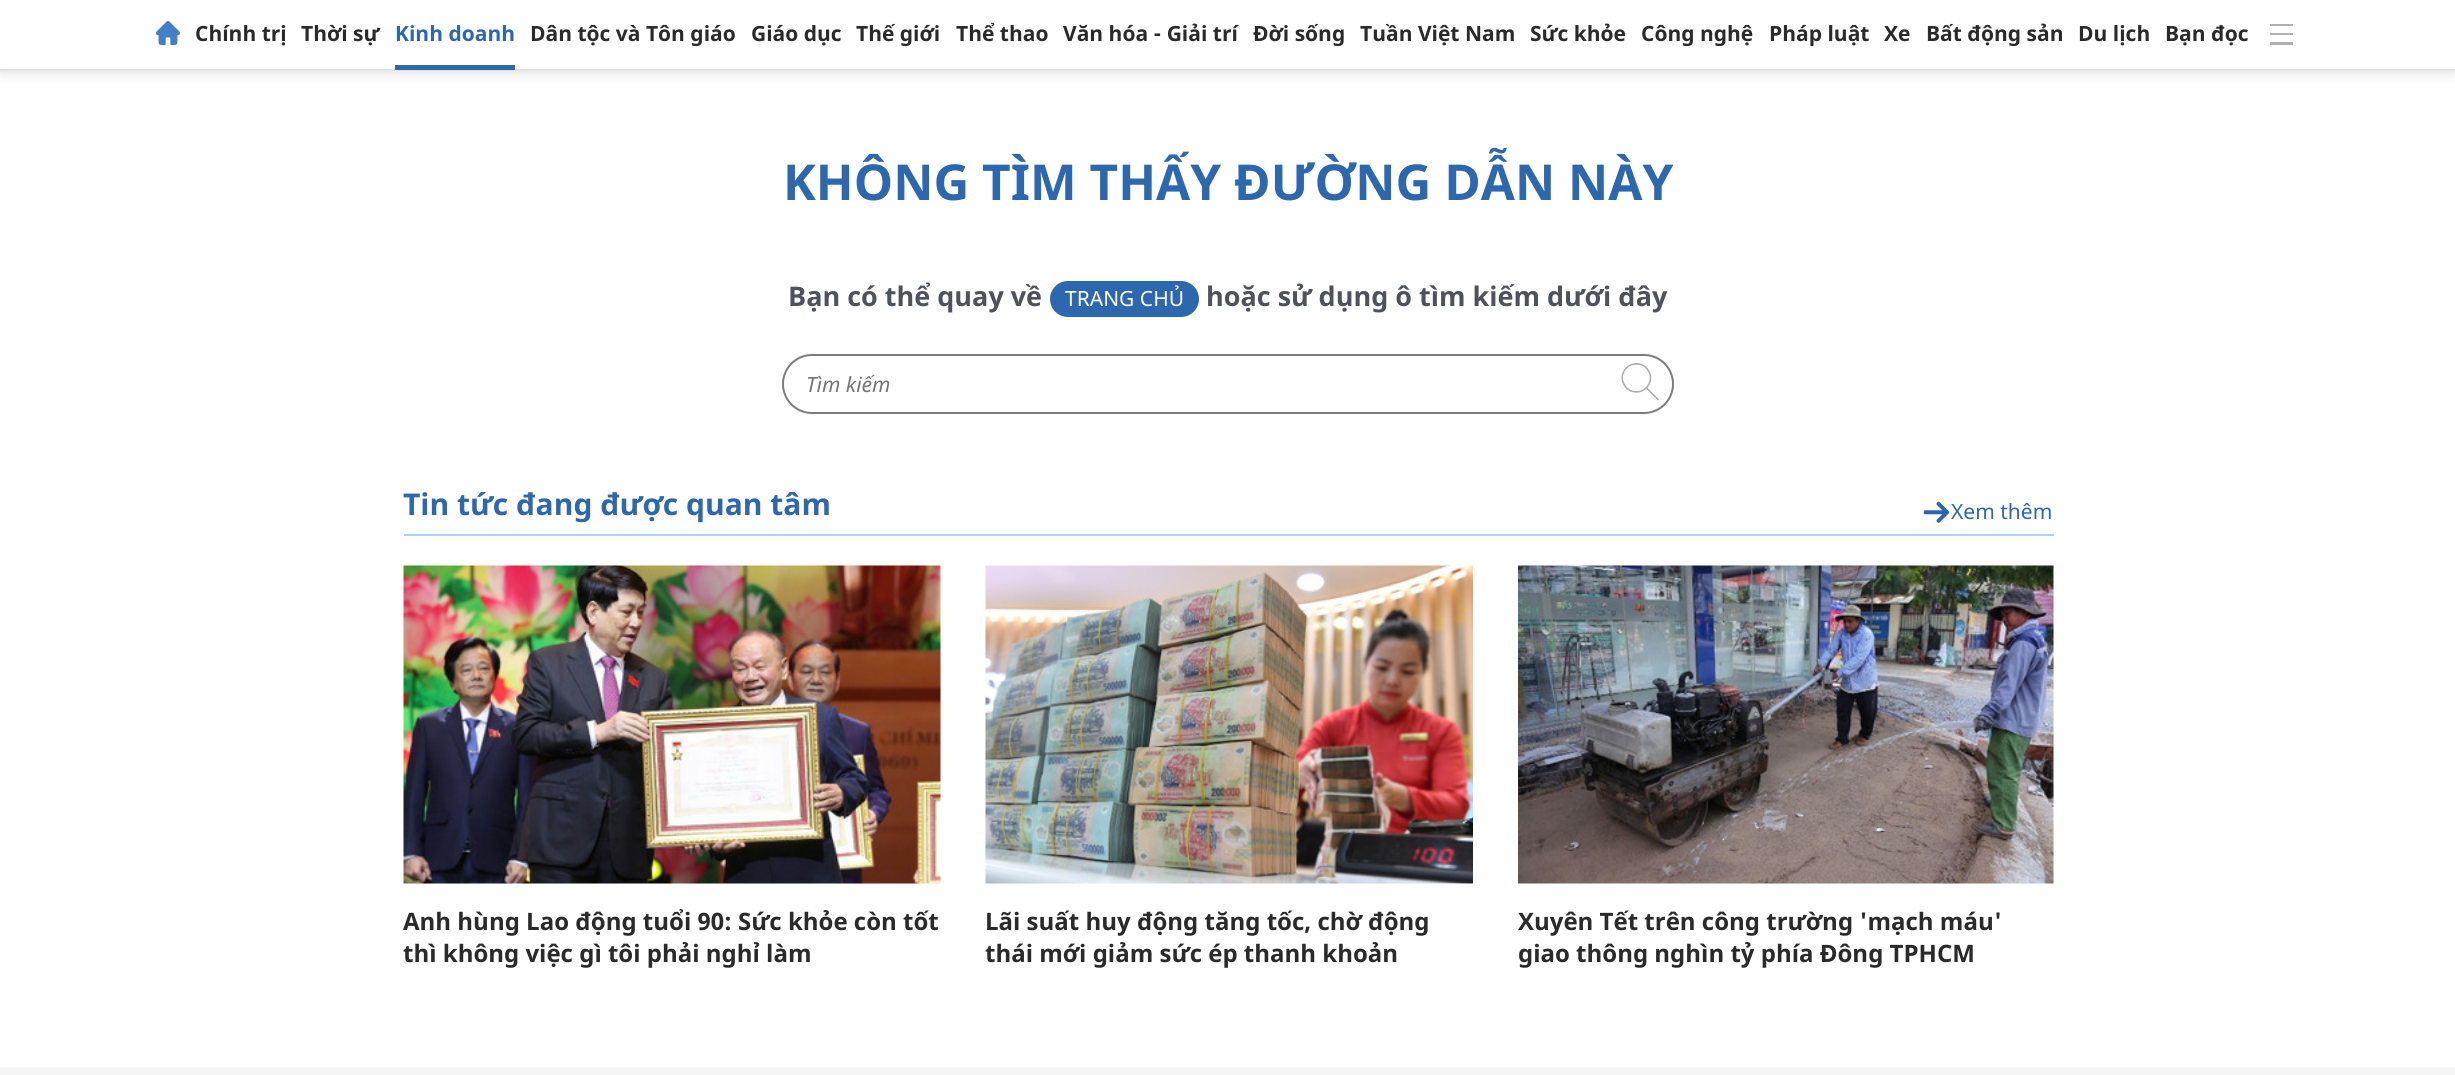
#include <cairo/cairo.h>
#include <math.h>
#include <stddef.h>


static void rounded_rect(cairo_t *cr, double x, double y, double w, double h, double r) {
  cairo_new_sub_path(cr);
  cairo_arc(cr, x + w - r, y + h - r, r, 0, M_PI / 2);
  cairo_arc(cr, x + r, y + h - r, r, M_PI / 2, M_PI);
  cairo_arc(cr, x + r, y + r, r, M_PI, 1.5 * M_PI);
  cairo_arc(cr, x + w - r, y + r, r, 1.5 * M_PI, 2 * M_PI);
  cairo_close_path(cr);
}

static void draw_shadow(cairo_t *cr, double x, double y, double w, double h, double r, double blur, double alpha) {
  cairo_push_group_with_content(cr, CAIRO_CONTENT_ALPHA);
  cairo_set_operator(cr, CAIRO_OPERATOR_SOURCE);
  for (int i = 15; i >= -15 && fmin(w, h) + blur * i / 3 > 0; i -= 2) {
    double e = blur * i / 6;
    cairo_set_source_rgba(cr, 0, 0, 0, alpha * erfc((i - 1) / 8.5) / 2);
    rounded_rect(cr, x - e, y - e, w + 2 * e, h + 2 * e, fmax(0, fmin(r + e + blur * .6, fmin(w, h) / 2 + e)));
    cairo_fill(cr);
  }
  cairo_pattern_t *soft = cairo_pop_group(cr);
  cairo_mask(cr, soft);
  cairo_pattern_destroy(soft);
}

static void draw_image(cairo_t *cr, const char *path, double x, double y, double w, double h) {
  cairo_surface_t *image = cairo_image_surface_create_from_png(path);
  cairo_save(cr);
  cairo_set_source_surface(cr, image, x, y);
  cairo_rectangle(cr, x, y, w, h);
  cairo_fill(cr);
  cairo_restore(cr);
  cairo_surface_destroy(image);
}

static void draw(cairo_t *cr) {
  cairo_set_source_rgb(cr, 1, 1, 1);
  cairo_paint(cr);
  cairo_set_source_rgb(cr, 0, 0, 0);
  draw_shadow(cr, 0, 2, 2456, 72, 0, 6, 0.1);
  cairo_set_source_rgb(cr, 1, 1, 1);
  cairo_rectangle(cr, 0, 0, 2455, 69);
  cairo_fill(cr);
  cairo_set_source_rgb(cr, 226 / 255.0, 226 / 255.0, 226 / 255.0);
  cairo_rectangle(cr, 0, 69, 2455, 2);
  cairo_fill(cr);
  draw_image(cr, "images/1.png", 156, 21, 24, 24);
  cairo_set_source_rgb(cr, 45 / 255.0, 103 / 255.0, 173 / 255.0);
  cairo_rectangle(cr, 395, 65, 120, 5);
  cairo_fill(cr);
  cairo_set_source_rgb(cr, 177 / 255.0, 177 / 255.0, 177 / 255.0);
  cairo_rectangle(cr, 2270, 24, 23, 2);
  cairo_fill(cr);
  cairo_rectangle(cr, 2270, 33, 23, 2);
  cairo_fill(cr);
  cairo_rectangle(cr, 2270, 42, 23, 3);
  cairo_fill(cr);
  cairo_set_source_rgb(cr, 45 / 255.0, 103 / 255.0, 173 / 255.0);
  rounded_rect(cr, 1050, 281, 149, 36, 18);
  cairo_fill(cr);
  rounded_rect(cr, 783, 355, 890, 58, 29);
  cairo_set_source_rgb(cr, 125 / 255.0, 125 / 255.0, 125 / 255.0);
  cairo_stroke(cr);
  draw_image(cr, "images/2.png", 1621, 363, 38, 38);
  cairo_set_source_rgb(cr, 173 / 255.0, 210 / 255.0, 1);
  cairo_rectangle(cr, 404, 534, 1650, 2);
  cairo_fill(cr);
  draw_image(cr, "images/3.png", 1923, 501, 27, 22);
  draw_image(cr, "images/4.png", 403, 565, 538, 319);
  draw_image(cr, "images/5.png", 985, 565, 488, 319);
  draw_image(cr, "images/6.png", 1518, 565, 536, 319);
  cairo_set_source_rgb(cr, 245 / 255.0, 245 / 255.0, 245 / 255.0);
  cairo_rectangle(cr, 0, 1067, 2455, 8);
  cairo_fill(cr);
  cairo_select_font_face(cr, "Noto Sans", CAIRO_FONT_SLANT_NORMAL, CAIRO_FONT_WEIGHT_BOLD);
  cairo_set_font_size(cr, 21);
  cairo_set_source_rgb(cr, 42 / 255.0, 42 / 255.0, 42 / 255.0);
  cairo_move_to(cr, 195, 41);
  cairo_show_text(cr, "Chính trị");
  cairo_move_to(cr, 301, 41);
  cairo_show_text(cr, "Thời sự");
  cairo_set_source_rgb(cr, 45 / 255.0, 103 / 255.0, 173 / 255.0);
  cairo_move_to(cr, 395, 41);
  cairo_show_text(cr, "Kinh doanh");
  cairo_set_source_rgb(cr, 42 / 255.0, 42 / 255.0, 42 / 255.0);
  cairo_move_to(cr, 530, 41);
  cairo_show_text(cr, "Dân tộc và Tôn giáo");
  cairo_move_to(cr, 751, 41);
  cairo_show_text(cr, "Giáo dục");
  cairo_move_to(cr, 856, 41);
  cairo_show_text(cr, "Thế giới");
  cairo_move_to(cr, 956, 41);
  cairo_show_text(cr, "Thể thao");
  cairo_move_to(cr, 1063, 41);
  cairo_show_text(cr, "Văn hóa - Giải trí");
  cairo_move_to(cr, 1253, 41);
  cairo_show_text(cr, "Đời sống");
  cairo_move_to(cr, 1360, 41);
  cairo_show_text(cr, "Tuần Việt Nam");
  cairo_move_to(cr, 1530, 41);
  cairo_show_text(cr, "Sức khỏe");
  cairo_move_to(cr, 1641, 41);
  cairo_show_text(cr, "Công nghệ");
  cairo_move_to(cr, 1769, 41);
  cairo_show_text(cr, "Pháp luật");
  cairo_move_to(cr, 1884, 41);
  cairo_show_text(cr, "Xe");
  cairo_move_to(cr, 1926, 41);
  cairo_show_text(cr, "Bất động sản");
  cairo_move_to(cr, 2078, 41);
  cairo_show_text(cr, "Du lịch");
  cairo_move_to(cr, 2165, 41);
  cairo_show_text(cr, "Bạn đọc");
  cairo_set_font_size(cr, 49.5);
  cairo_set_source_rgb(cr, 45 / 255.0, 103 / 255.0, 173 / 255.0);
  cairo_move_to(cr, 783, 200);
  cairo_show_text(cr, "KHÔNG TÌM THẤY ĐƯỜNG DẪN NÀY");
  cairo_set_font_size(cr, 27);
  cairo_set_source_rgb(cr, 77 / 255.0, 82 / 255.0, 91 / 255.0);
  cairo_move_to(cr, 788, 306);
  cairo_show_text(cr, "Bạn có thể quay về");
  cairo_select_font_face(cr, "Noto Sans", CAIRO_FONT_SLANT_NORMAL, CAIRO_FONT_WEIGHT_NORMAL);
  cairo_set_font_size(cr, 21);
  cairo_set_source_rgb(cr, 1, 1, 1);
  cairo_move_to(cr, 1065, 306);
  cairo_show_text(cr, "TRANG CHỦ");
  cairo_select_font_face(cr, "Noto Sans", CAIRO_FONT_SLANT_NORMAL, CAIRO_FONT_WEIGHT_BOLD);
  cairo_set_font_size(cr, 27);
  cairo_set_source_rgb(cr, 77 / 255.0, 82 / 255.0, 91 / 255.0);
  cairo_move_to(cr, 1206, 306);
  cairo_show_text(cr, "hoặc sử dụng ô tìm kiếm dưới đây");
  cairo_select_font_face(cr, "Noto Sans", CAIRO_FONT_SLANT_ITALIC, CAIRO_FONT_WEIGHT_NORMAL);
  cairo_set_font_size(cr, 21);
  cairo_set_source_rgb(cr, 117 / 255.0, 117 / 255.0, 117 / 255.0);
  cairo_move_to(cr, 806, 392);
  cairo_show_text(cr, "Tìm kiếm");
  cairo_select_font_face(cr, "Noto Sans", CAIRO_FONT_SLANT_NORMAL, CAIRO_FONT_WEIGHT_BOLD);
  cairo_set_font_size(cr, 30);
  cairo_set_source_rgb(cr, 45 / 255.0, 103 / 255.0, 173 / 255.0);
  cairo_move_to(cr, 403, 515);
  cairo_show_text(cr, "Tin tức đang được quan tâm");
  cairo_select_font_face(cr, "Noto Sans", CAIRO_FONT_SLANT_NORMAL, CAIRO_FONT_WEIGHT_NORMAL);
  cairo_set_font_size(cr, 21);
  cairo_move_to(cr, 1951, 519);
  cairo_show_text(cr, "Xem thêm");
  cairo_select_font_face(cr, "Noto Sans", CAIRO_FONT_SLANT_NORMAL, CAIRO_FONT_WEIGHT_BOLD);
  cairo_set_font_size(cr, 24);
  cairo_set_source_rgb(cr, 42 / 255.0, 42 / 255.0, 42 / 255.0);
  cairo_move_to(cr, 403, 930);
  cairo_show_text(cr, "Anh hùng Lao động tuổi 90: Sức khỏe còn tốt");
  cairo_move_to(cr, 403, 962);
  cairo_show_text(cr, "thì không việc gì tôi phải nghỉ làm");
  cairo_move_to(cr, 985, 930);
  cairo_show_text(cr, "Lãi suất huy động tăng tốc, chờ động");
  cairo_move_to(cr, 985, 962);
  cairo_show_text(cr, "thái mới giảm sức ép thanh khoản");
  cairo_move_to(cr, 1518, 930);
  cairo_show_text(cr, "Xuyên Tết trên công trường 'mạch máu'");
  cairo_move_to(cr, 1518, 962);
  cairo_show_text(cr, "giao thông nghìn tỷ phía Đông TPHCM");
}

int main(void) {
  cairo_surface_t *surface = cairo_image_surface_create(CAIRO_FORMAT_RGB24, 2455, 1075);
  cairo_t *cr = cairo_create(surface);
  cairo_font_options_t *options = cairo_font_options_create();
  cairo_font_options_set_hint_metrics(options, CAIRO_HINT_METRICS_OFF);
  cairo_font_options_set_hint_style(options, CAIRO_HINT_STYLE_NONE);
  cairo_set_font_options(cr, options);
  cairo_set_miter_limit(cr, 4);
  draw(cr);
  cairo_surface_write_to_png(surface, "out.png");
  cairo_font_options_destroy(options);
  cairo_destroy(cr);
  cairo_surface_destroy(surface);
  return 0;
}
